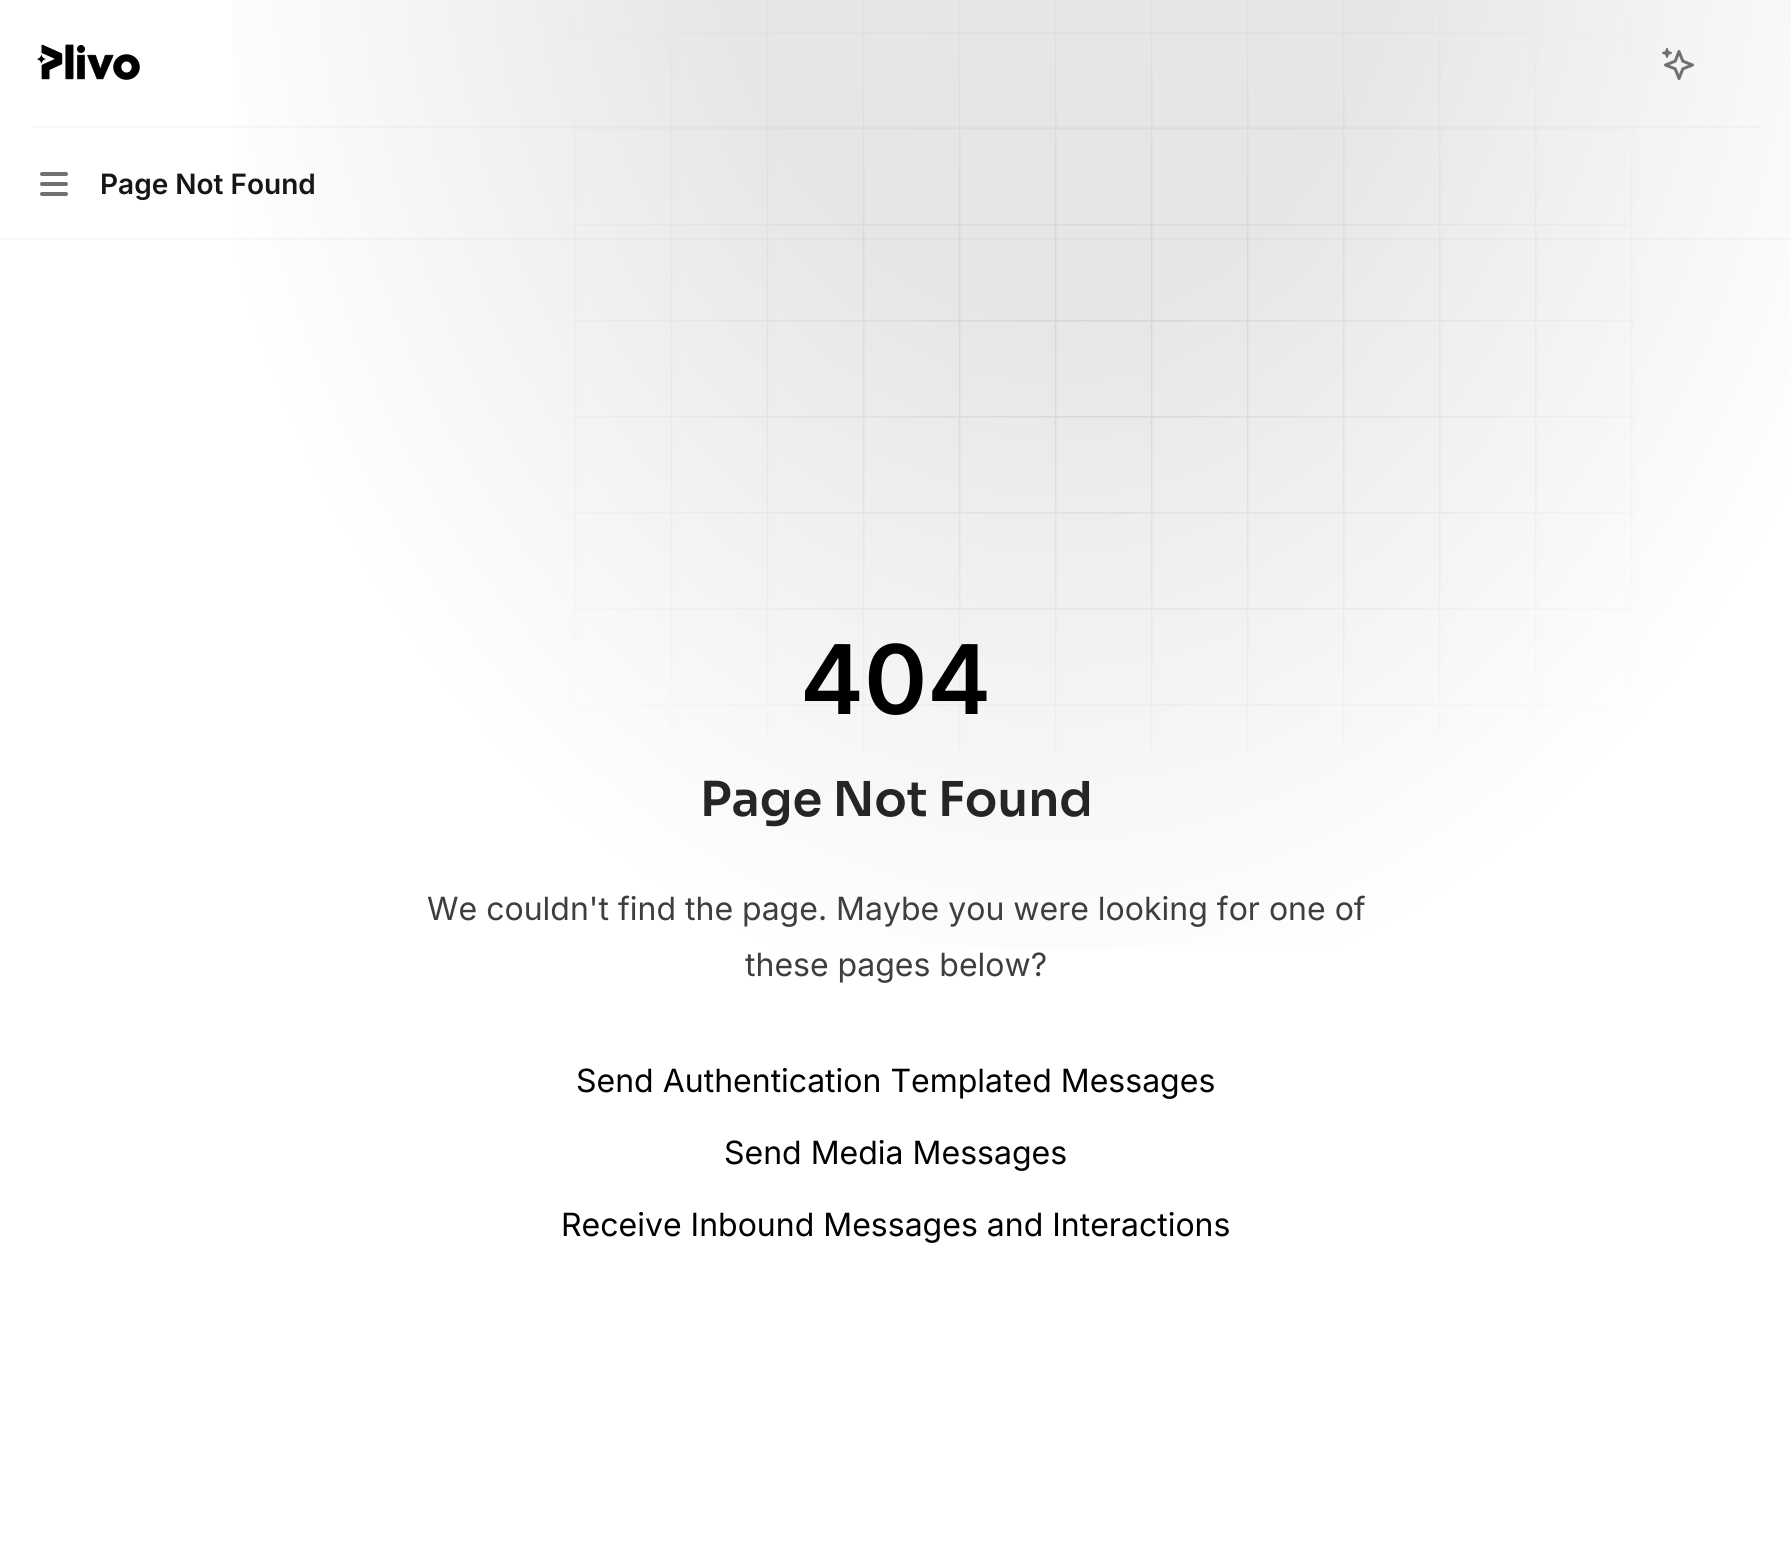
#include <cairo/cairo.h>
#include <math.h>
#include <stddef.h>


static void draw_image(cairo_t *cr, const char *path, double x, double y, double w, double h) {
  cairo_surface_t *image = cairo_image_surface_create_from_png(path);
  cairo_save(cr);
  cairo_set_source_surface(cr, image, x, y);
  cairo_rectangle(cr, x, y, w, h);
  cairo_fill(cr);
  cairo_restore(cr);
  cairo_surface_destroy(image);
}

static void draw(cairo_t *cr) {
  cairo_pattern_t *gradient;
  cairo_set_source_rgb(cr, 1, 1, 1);
  cairo_paint(cr);
  gradient = cairo_pattern_create_radial(0, 0, 0, 0, 0, 1);
  cairo_pattern_set_matrix(gradient, &(cairo_matrix_t){1.0 / 889, 0, 0, 1.0 / 1168, -1.0 * 1057 / 889, -1.0 * -147 / 1168});
  cairo_pattern_add_color_stop_rgba(gradient, 0.39, 230 / 255.0, 230 / 255.0, 230 / 255.0, 1);
  cairo_pattern_add_color_stop_rgba(gradient, 1, 1, 1, 1, 1);
  cairo_set_source(cr, gradient);
  cairo_pattern_destroy(gradient);
  cairo_rectangle(cr, 232, 0, 1559, 950);
  cairo_fill(cr);
  draw_image(cr, "images/4.png", 572, 0, 1062, 751);
  cairo_set_source_rgba(cr, 111 / 255.0, 111 / 255.0, 111 / 255.0, 0.05);
  cairo_rectangle(cr, 32, 126, 1728, 2);
  cairo_fill(cr);
  draw_image(cr, "images/1.png", 37, 44, 103, 36);
  draw_image(cr, "images/2.png", 1662, 48, 32, 32);
  draw_image(cr, "images/3.png", 40, 172, 28, 24);
  cairo_rectangle(cr, 0, 238, 1791, 2);
  cairo_fill(cr);
  cairo_select_font_face(cr, "Inter SemiBold", CAIRO_FONT_SLANT_NORMAL, CAIRO_FONT_WEIGHT_NORMAL);
  cairo_set_font_size(cr, 28);
  cairo_set_source_rgb(cr, 22 / 255.0, 22 / 255.0, 22 / 255.0);
  cairo_move_to(cr, 100, 194);
  cairo_show_text(cr, "Page Not Found");
  cairo_set_font_size(cr, 96);
  cairo_set_source_rgb(cr, 0, 0, 0);
  cairo_move_to(cr, 800, 714);
  cairo_show_text(cr, "404");
  cairo_select_font_face(cr, "Sora SemiBold", CAIRO_FONT_SLANT_NORMAL, CAIRO_FONT_WEIGHT_NORMAL);
  cairo_set_font_size(cr, 48);
  cairo_set_source_rgb(cr, 37 / 255.0, 37 / 255.0, 37 / 255.0);
  cairo_move_to(cr, 700, 816);
  cairo_show_text(cr, "Page Not Found");
  cairo_select_font_face(cr, "Inter", CAIRO_FONT_SLANT_NORMAL, CAIRO_FONT_WEIGHT_NORMAL);
  cairo_set_font_size(cr, 32);
  cairo_set_source_rgb(cr, 62 / 255.0, 62 / 255.0, 62 / 255.0);
  cairo_move_to(cr, 427, 920);
  cairo_show_text(cr, "We couldn't find the page. Maybe you were looking for one of");
  cairo_move_to(cr, 745, 976);
  cairo_show_text(cr, "these pages below?");
  cairo_set_source_rgb(cr, 0, 0, 0);
  cairo_move_to(cr, 576, 1092);
  cairo_show_text(cr, "Send Authentication Templated Messages");
  cairo_move_to(cr, 724, 1164);
  cairo_show_text(cr, "Send Media Messages");
  cairo_move_to(cr, 561, 1236);
  cairo_show_text(cr, "Receive Inbound Messages and Interactions");
}

int main(void) {
  cairo_surface_t *surface = cairo_image_surface_create(CAIRO_FORMAT_RGB24, 1791, 1558);
  cairo_t *cr = cairo_create(surface);
  cairo_font_options_t *options = cairo_font_options_create();
  cairo_font_options_set_hint_metrics(options, CAIRO_HINT_METRICS_OFF);
  cairo_font_options_set_hint_style(options, CAIRO_HINT_STYLE_NONE);
  cairo_set_font_options(cr, options);
  cairo_set_miter_limit(cr, 4);
  draw(cr);
  cairo_surface_write_to_png(surface, "out.png");
  cairo_font_options_destroy(options);
  cairo_destroy(cr);
  cairo_surface_destroy(surface);
  return 0;
}
